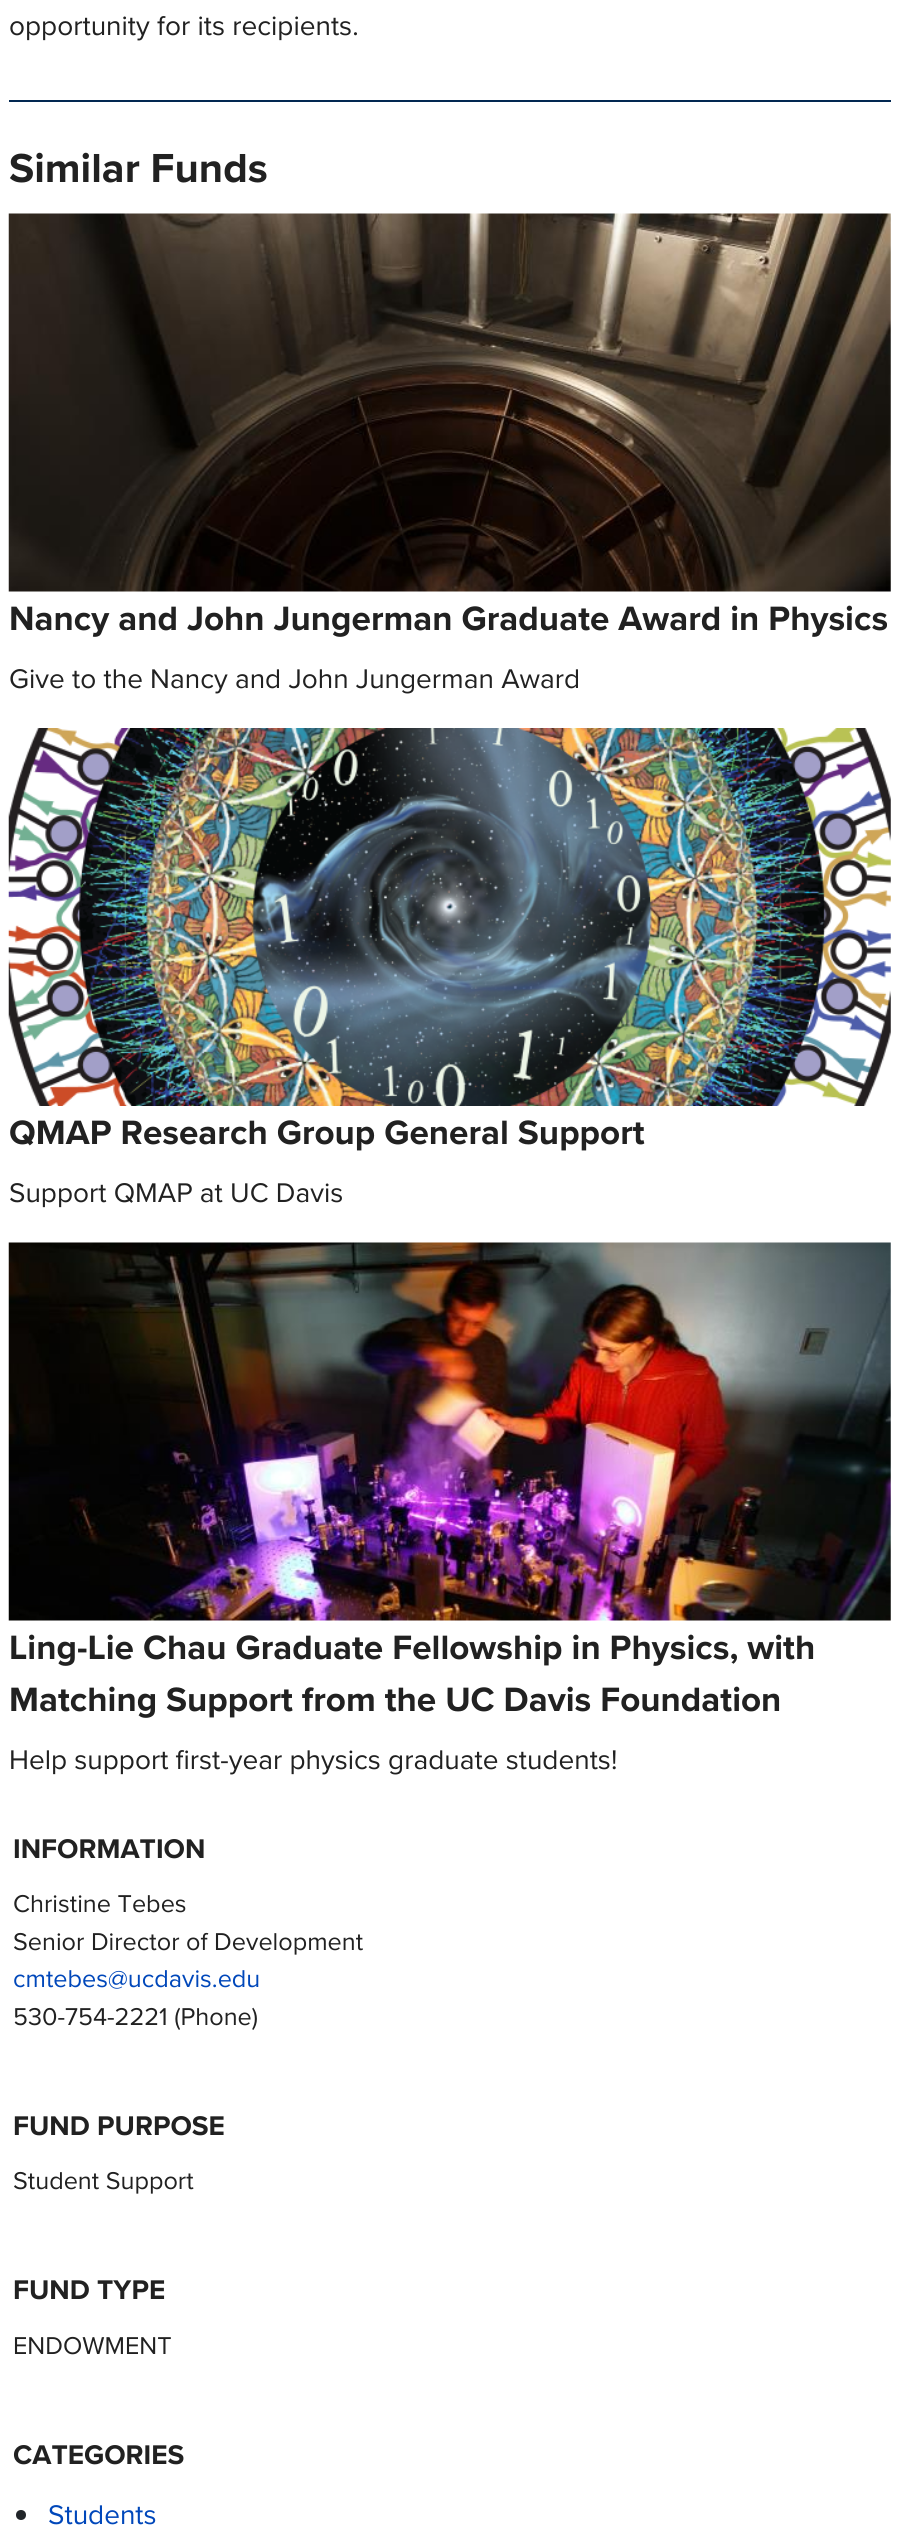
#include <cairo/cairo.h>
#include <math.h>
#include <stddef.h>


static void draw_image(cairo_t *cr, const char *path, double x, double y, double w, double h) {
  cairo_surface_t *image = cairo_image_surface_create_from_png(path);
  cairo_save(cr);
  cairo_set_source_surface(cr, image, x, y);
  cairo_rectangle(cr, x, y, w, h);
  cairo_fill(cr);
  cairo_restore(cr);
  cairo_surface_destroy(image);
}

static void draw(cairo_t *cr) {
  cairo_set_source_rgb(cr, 1, 1, 1);
  cairo_paint(cr);
  cairo_set_source_rgb(cr, 2 / 255.0, 40 / 255.0, 81 / 255.0);
  cairo_rectangle(cr, 9, 100, 882, 2);
  cairo_fill(cr);
  draw_image(cr, "images/1.png", 8, 213, 883, 379);
  draw_image(cr, "images/2.png", 8, 728, 883, 378);
  draw_image(cr, "images/3.png", 8, 1242, 883, 379);
  cairo_set_source_rgb(cr, 33 / 255.0, 37 / 255.0, 41 / 255.0);
  cairo_arc(cr, 21, 2515, 5, 0, 2 * M_PI);
  cairo_fill(cr);
  cairo_select_font_face(cr, "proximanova", CAIRO_FONT_SLANT_NORMAL, CAIRO_FONT_WEIGHT_NORMAL);
  cairo_set_font_size(cr, 28);
  cairo_set_source_rgb(cr, 33 / 255.0, 33 / 255.0, 33 / 255.0);
  cairo_move_to(cr, 9, 35);
  cairo_show_text(cr, "opportunity for its recipients.");
  cairo_select_font_face(cr, "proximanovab", CAIRO_FONT_SLANT_NORMAL, CAIRO_FONT_WEIGHT_BOLD);
  cairo_set_font_size(cr, 42);
  cairo_move_to(cr, 9, 182);
  cairo_show_text(cr, "Similar Funds");
  cairo_set_font_size(cr, 35);
  cairo_move_to(cr, 9, 630);
  cairo_show_text(cr, "Nancy and John Jungerman Graduate Award in Physics");
  cairo_select_font_face(cr, "proximanova", CAIRO_FONT_SLANT_NORMAL, CAIRO_FONT_WEIGHT_NORMAL);
  cairo_set_font_size(cr, 28);
  cairo_move_to(cr, 9, 688);
  cairo_show_text(cr, "Give to the Nancy and John Jungerman Award");
  cairo_select_font_face(cr, "proximanovab", CAIRO_FONT_SLANT_NORMAL, CAIRO_FONT_WEIGHT_BOLD);
  cairo_set_font_size(cr, 35);
  cairo_move_to(cr, 9, 1144);
  cairo_show_text(cr, "QMAP Research Group General Support");
  cairo_select_font_face(cr, "proximanova", CAIRO_FONT_SLANT_NORMAL, CAIRO_FONT_WEIGHT_NORMAL);
  cairo_set_font_size(cr, 28);
  cairo_move_to(cr, 9, 1202);
  cairo_show_text(cr, "Support QMAP at UC Davis");
  cairo_select_font_face(cr, "proximanovab", CAIRO_FONT_SLANT_NORMAL, CAIRO_FONT_WEIGHT_BOLD);
  cairo_set_font_size(cr, 35);
  cairo_move_to(cr, 9, 1659);
  cairo_show_text(cr, "Ling-Lie Chau Graduate Fellowship in Physics, with");
  cairo_move_to(cr, 9, 1711);
  cairo_show_text(cr, "Matching Support from the UC Davis Foundation");
  cairo_select_font_face(cr, "proximanova", CAIRO_FONT_SLANT_NORMAL, CAIRO_FONT_WEIGHT_NORMAL);
  cairo_set_font_size(cr, 28);
  cairo_move_to(cr, 9, 1769);
  cairo_show_text(cr, "Help support first-year physics graduate students!");
  cairo_select_font_face(cr, "proximanovab", CAIRO_FONT_SLANT_NORMAL, CAIRO_FONT_WEIGHT_BOLD);
  cairo_move_to(cr, 13, 1858);
  cairo_show_text(cr, "INFORMATION");
  cairo_select_font_face(cr, "proximanova", CAIRO_FONT_SLANT_NORMAL, CAIRO_FONT_WEIGHT_NORMAL);
  cairo_set_font_size(cr, 25.25);
  cairo_move_to(cr, 13, 1912);
  cairo_show_text(cr, "Christine Tebes");
  cairo_move_to(cr, 13, 1950);
  cairo_show_text(cr, "Senior Director of Development");
  cairo_set_source_rgb(cr, 0, 71 / 255.0, 186 / 255.0);
  cairo_move_to(cr, 13, 1987);
  cairo_show_text(cr, "cmtebes@ucdavis.edu");
  cairo_set_source_rgb(cr, 33 / 255.0, 33 / 255.0, 33 / 255.0);
  cairo_move_to(cr, 13, 2025);
  cairo_show_text(cr, "530-754-2221 (Phone)");
  cairo_select_font_face(cr, "proximanovab", CAIRO_FONT_SLANT_NORMAL, CAIRO_FONT_WEIGHT_BOLD);
  cairo_set_font_size(cr, 28);
  cairo_move_to(cr, 13, 2135);
  cairo_show_text(cr, "FUND PURPOSE");
  cairo_select_font_face(cr, "proximanova", CAIRO_FONT_SLANT_NORMAL, CAIRO_FONT_WEIGHT_NORMAL);
  cairo_set_font_size(cr, 25.25);
  cairo_move_to(cr, 13, 2189);
  cairo_show_text(cr, "Student Support");
  cairo_select_font_face(cr, "proximanovab", CAIRO_FONT_SLANT_NORMAL, CAIRO_FONT_WEIGHT_BOLD);
  cairo_set_font_size(cr, 28);
  cairo_move_to(cr, 13, 2299);
  cairo_show_text(cr, "FUND TYPE");
  cairo_select_font_face(cr, "proximanova", CAIRO_FONT_SLANT_NORMAL, CAIRO_FONT_WEIGHT_NORMAL);
  cairo_set_font_size(cr, 25.25);
  cairo_move_to(cr, 13, 2354);
  cairo_show_text(cr, "ENDOWMENT");
  cairo_select_font_face(cr, "proximanovab", CAIRO_FONT_SLANT_NORMAL, CAIRO_FONT_WEIGHT_BOLD);
  cairo_set_font_size(cr, 28);
  cairo_move_to(cr, 13, 2464);
  cairo_show_text(cr, "CATEGORIES");
  cairo_select_font_face(cr, "proximanova", CAIRO_FONT_SLANT_NORMAL, CAIRO_FONT_WEIGHT_NORMAL);
  cairo_set_source_rgb(cr, 0, 71 / 255.0, 186 / 255.0);
  cairo_move_to(cr, 48, 2524);
  cairo_show_text(cr, "Students");
}

int main(void) {
  cairo_surface_t *surface = cairo_image_surface_create(CAIRO_FORMAT_RGB24, 901, 2546);
  cairo_t *cr = cairo_create(surface);
  cairo_font_options_t *options = cairo_font_options_create();
  cairo_font_options_set_hint_metrics(options, CAIRO_HINT_METRICS_OFF);
  cairo_font_options_set_hint_style(options, CAIRO_HINT_STYLE_NONE);
  cairo_set_font_options(cr, options);
  cairo_set_miter_limit(cr, 4);
  draw(cr);
  cairo_surface_write_to_png(surface, "out.png");
  cairo_font_options_destroy(options);
  cairo_destroy(cr);
  cairo_surface_destroy(surface);
  return 0;
}
